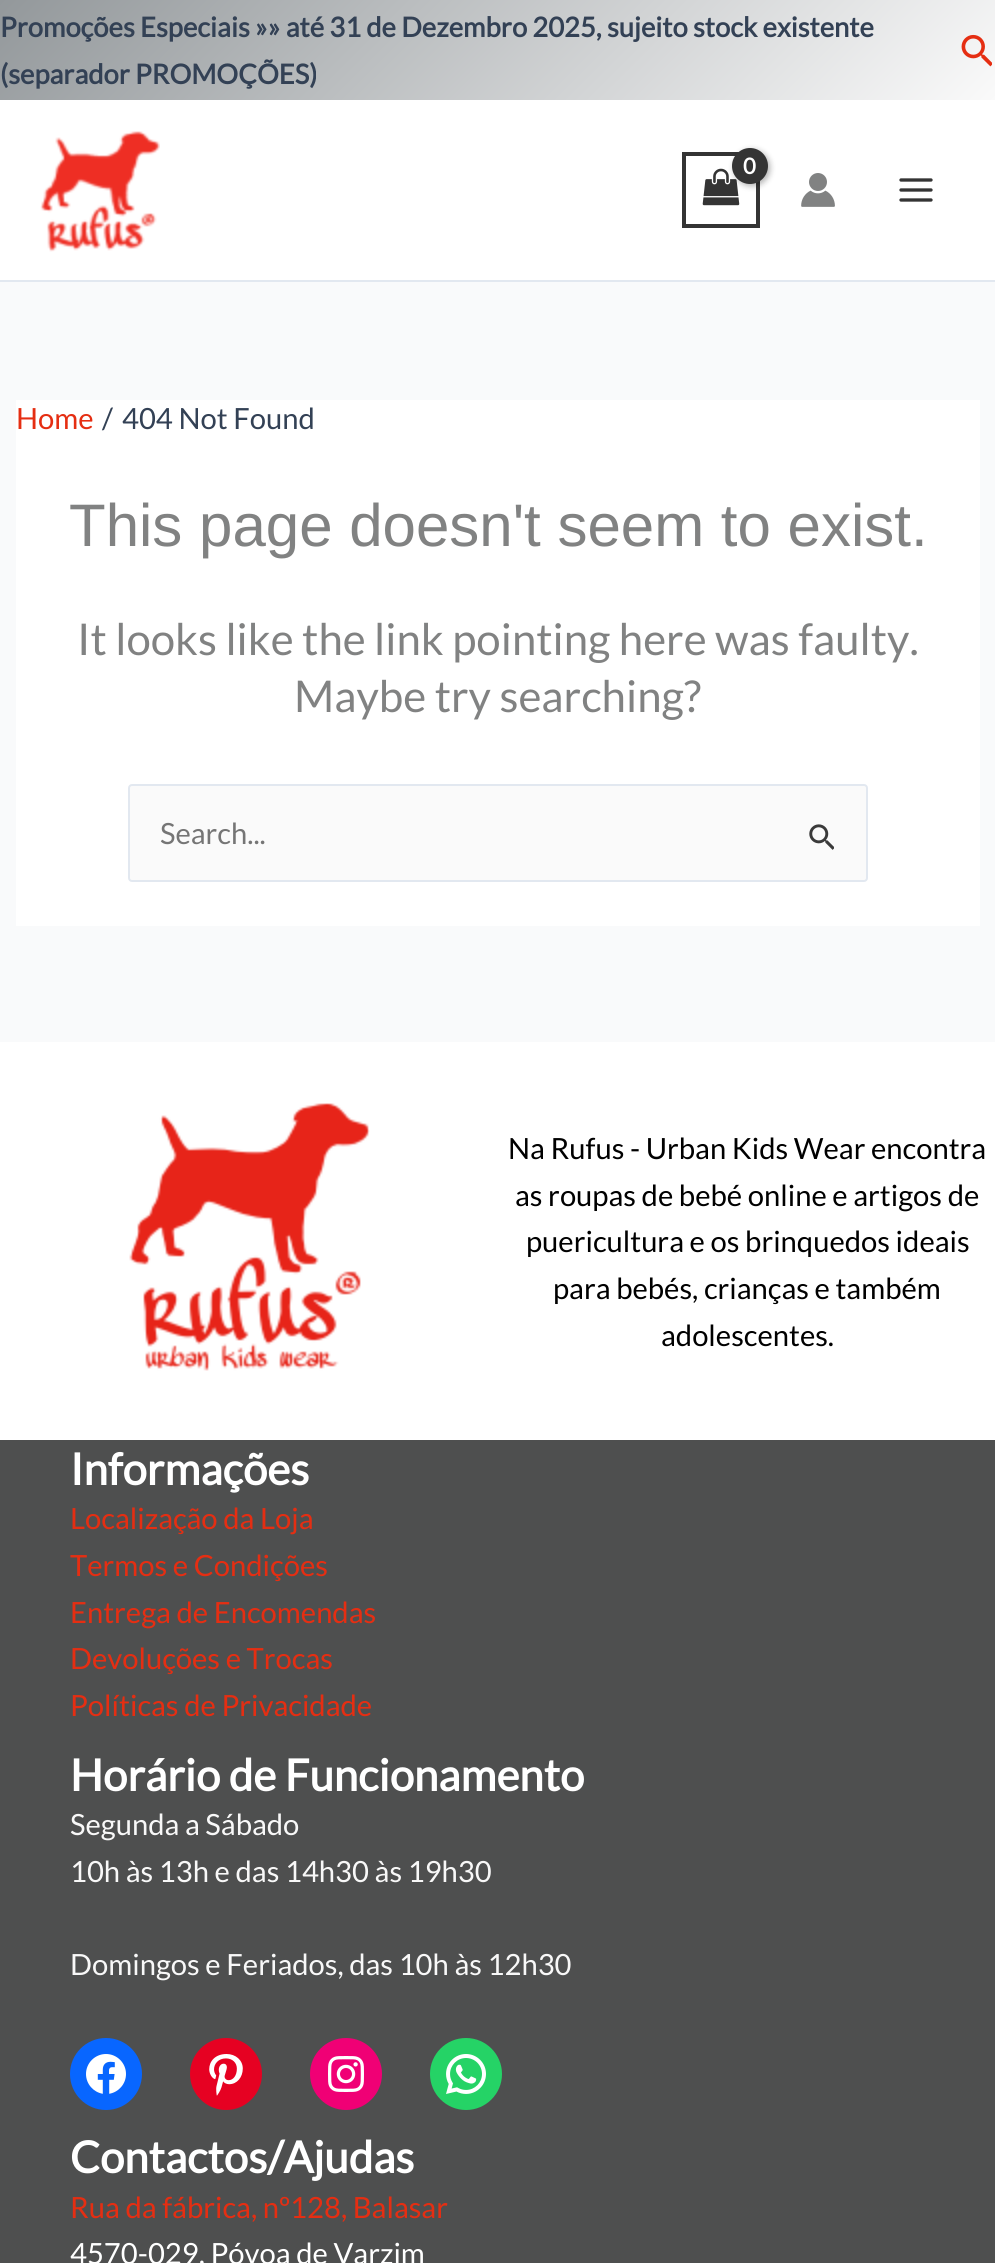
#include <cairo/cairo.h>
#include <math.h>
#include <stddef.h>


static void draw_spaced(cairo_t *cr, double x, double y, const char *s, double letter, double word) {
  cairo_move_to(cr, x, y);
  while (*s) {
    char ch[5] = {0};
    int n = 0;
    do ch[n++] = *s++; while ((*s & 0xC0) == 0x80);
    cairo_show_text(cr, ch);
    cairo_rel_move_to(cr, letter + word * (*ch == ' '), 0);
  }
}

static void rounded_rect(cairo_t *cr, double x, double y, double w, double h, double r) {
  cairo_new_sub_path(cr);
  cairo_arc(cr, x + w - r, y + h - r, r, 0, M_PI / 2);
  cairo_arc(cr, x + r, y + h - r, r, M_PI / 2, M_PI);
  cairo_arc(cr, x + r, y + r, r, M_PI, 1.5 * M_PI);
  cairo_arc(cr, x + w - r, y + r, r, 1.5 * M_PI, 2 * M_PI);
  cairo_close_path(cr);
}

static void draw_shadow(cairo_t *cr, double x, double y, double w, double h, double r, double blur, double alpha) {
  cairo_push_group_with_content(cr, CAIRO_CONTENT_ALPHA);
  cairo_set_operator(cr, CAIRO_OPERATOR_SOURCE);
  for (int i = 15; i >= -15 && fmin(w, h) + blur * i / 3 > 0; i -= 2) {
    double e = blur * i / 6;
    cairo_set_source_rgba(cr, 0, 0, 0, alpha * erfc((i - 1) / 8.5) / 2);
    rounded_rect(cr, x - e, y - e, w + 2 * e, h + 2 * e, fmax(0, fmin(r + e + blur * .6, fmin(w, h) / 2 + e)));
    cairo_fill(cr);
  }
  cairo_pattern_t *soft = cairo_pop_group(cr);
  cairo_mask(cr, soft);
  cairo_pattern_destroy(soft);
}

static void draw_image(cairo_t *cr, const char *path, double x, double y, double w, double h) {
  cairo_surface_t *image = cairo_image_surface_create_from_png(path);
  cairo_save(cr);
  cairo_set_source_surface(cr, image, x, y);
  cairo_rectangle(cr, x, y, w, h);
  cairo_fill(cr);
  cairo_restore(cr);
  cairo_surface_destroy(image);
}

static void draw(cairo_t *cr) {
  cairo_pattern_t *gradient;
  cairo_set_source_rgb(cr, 249 / 255.0, 250 / 255.0, 251 / 255.0);
  cairo_paint(cr);
  gradient = cairo_pattern_create_linear(224, -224, 772, 324);
  cairo_pattern_add_color_stop_rgba(gradient, 0, 147 / 255.0, 152 / 255.0, 155 / 255.0, 1);
  cairo_pattern_add_color_stop_rgba(gradient, 1, 250 / 255.0, 250 / 255.0, 250 / 255.0, 1);
  cairo_set_source(cr, gradient);
  cairo_pattern_destroy(gradient);
  cairo_rectangle(cr, 0, 0, 995, 100);
  cairo_fill(cr);
  draw_image(cr, "images/1.png", 961, 34, 31, 33);
  cairo_set_source_rgb(cr, 1, 1, 1);
  cairo_rectangle(cr, 0, 100, 995, 180);
  cairo_fill(cr);
  cairo_set_source_rgb(cr, 226 / 255.0, 232 / 255.0, 240 / 255.0);
  cairo_rectangle(cr, 0, 280, 995, 2);
  cairo_fill(cr);
  draw_image(cr, "images/2.png", 40, 131, 120, 121);
  cairo_rectangle(cr, 684, 154, 74, 72);
  cairo_set_source_rgb(cr, 52 / 255.0, 52 / 255.0, 52 / 255.0);
  cairo_set_line_width(cr, 4);
  cairo_stroke(cr);
  draw_image(cr, "images/3.png", 702, 168, 38, 38);
  cairo_set_source_rgb(cr, 0, 0, 0);
  draw_shadow(cr, 734, 150, 36, 36, 18, 3, 0.3);
  cairo_set_source_rgb(cr, 52 / 255.0, 52 / 255.0, 52 / 255.0);
  cairo_arc(cr, 750, 166, 18, 0, 2 * M_PI);
  cairo_fill(cr);
  draw_image(cr, "images/4.png", 801, 173, 34, 34);
  draw_image(cr, "images/5.png", 899, 178, 34, 24);
  cairo_set_source_rgb(cr, 1, 1, 1);
  cairo_rectangle(cr, 16, 400, 964, 526);
  cairo_fill(cr);
  cairo_set_source_rgb(cr, 250 / 255.0, 250 / 255.0, 250 / 255.0);
  rounded_rect(cr, 129, 785, 738, 96, 3);
  cairo_fill_preserve(cr);
  cairo_set_source_rgb(cr, 226 / 255.0, 232 / 255.0, 240 / 255.0);
  cairo_set_line_width(cr, 2);
  cairo_stroke(cr);
  draw_image(cr, "images/6.png", 809, 824, 25, 26);
  cairo_set_source_rgb(cr, 1, 1, 1);
  cairo_rectangle(cr, 0, 1042, 995, 398);
  cairo_fill(cr);
  draw_image(cr, "images/7.png", 129, 1103, 241, 268);
  cairo_set_source_rgb(cr, 78 / 255.0, 79 / 255.0, 79 / 255.0);
  cairo_rectangle(cr, 0, 1440, 995, 823);
  cairo_fill(cr);
  cairo_set_source_rgb(cr, 8 / 255.0, 102 / 255.0, 1);
  cairo_arc(cr, 106, 2074, 36, 0, 2 * M_PI);
  cairo_fill(cr);
  draw_image(cr, "images/8.png", 86, 2054, 40, 40);
  cairo_set_source_rgb(cr, 230 / 255.0, 1 / 255.0, 34 / 255.0);
  cairo_arc(cr, 226, 2074, 36, 0, 2 * M_PI);
  cairo_fill(cr);
  draw_image(cr, "images/9.png", 209, 2054, 34, 42);
  cairo_set_source_rgb(cr, 240 / 255.0, 0, 117 / 255.0);
  cairo_arc(cr, 346, 2074, 36, 0, 2 * M_PI);
  cairo_fill(cr);
  draw_image(cr, "images/10.png", 328, 2056, 36, 36);
  cairo_set_source_rgb(cr, 37 / 255.0, 211 / 255.0, 102 / 255.0);
  cairo_arc(cr, 466, 2074, 36, 0, 2 * M_PI);
  cairo_fill(cr);
  draw_image(cr, "images/11.png", 446, 2054, 40, 40);
  cairo_select_font_face(cr, "Lato", CAIRO_FONT_SLANT_NORMAL, CAIRO_FONT_WEIGHT_BOLD);
  cairo_set_font_size(cr, 27.35);
  cairo_set_source_rgb(cr, 51 / 255.0, 65 / 255.0, 85 / 255.0);
  cairo_move_to(cr, 0, 37);
  cairo_show_text(cr, "Promoções Especiais »» até 31 de Dezembro 2025, sujeito stock existente");
  cairo_move_to(cr, 0, 84);
  cairo_show_text(cr, "(separador PROMOÇÕES)");
  cairo_set_font_size(cr, 22);
  cairo_set_source_rgb(cr, 1, 1, 1);
  draw_spaced(cr, 743, 174, "0", -1, 0);
  cairo_select_font_face(cr, "Lato", CAIRO_FONT_SLANT_NORMAL, CAIRO_FONT_WEIGHT_NORMAL);
  cairo_set_font_size(cr, 29.2);
  cairo_set_source_rgb(cr, 229 / 255.0, 46 / 255.0, 18 / 255.0);
  cairo_move_to(cr, 16, 429);
  cairo_show_text(cr, "Home");
  cairo_set_source_rgb(cr, 51 / 255.0, 65 / 255.0, 85 / 255.0);
  cairo_move_to(cr, 102, 429);
  cairo_show_text(cr, "/");
  cairo_move_to(cr, 122, 429);
  cairo_show_text(cr, "404 Not Found");
  cairo_select_font_face(cr, "Liberation Sans", CAIRO_FONT_SLANT_NORMAL, CAIRO_FONT_WEIGHT_NORMAL);
  cairo_set_font_size(cr, 60);
  cairo_set_source_rgb(cr, 129 / 255.0, 130 / 255.0, 130 / 255.0);
  cairo_move_to(cr, 69, 546);
  cairo_show_text(cr, "This page doesn't seem to exist.");
  cairo_select_font_face(cr, "Lato", CAIRO_FONT_SLANT_NORMAL, CAIRO_FONT_WEIGHT_NORMAL);
  cairo_set_font_size(cr, 43.75);
  cairo_move_to(cr, 77, 655);
  cairo_show_text(cr, "It looks like the link pointing here was faulty.");
  cairo_move_to(cr, 294, 712);
  cairo_show_text(cr, "Maybe try searching?");
  cairo_set_font_size(cr, 29.2);
  cairo_set_source_rgb(cr, 117 / 255.0, 117 / 255.0, 117 / 255.0);
  cairo_move_to(cr, 160, 844);
  cairo_show_text(cr, "Search...");
  cairo_set_source_rgb(cr, 0, 0, 0);
  cairo_move_to(cr, 508, 1159);
  cairo_show_text(cr, "Na Rufus - Urban Kids Wear encontra");
  cairo_move_to(cr, 515, 1206);
  cairo_show_text(cr, "as roupas de bebé online e artigos de");
  cairo_move_to(cr, 526, 1252);
  cairo_show_text(cr, "puericultura e os brinquedos ideais");
  cairo_move_to(cr, 553, 1299);
  cairo_show_text(cr, "para bebés, crianças e também");
  cairo_move_to(cr, 661, 1346);
  cairo_show_text(cr, "adolescentes.");
  cairo_select_font_face(cr, "Lato", CAIRO_FONT_SLANT_NORMAL, CAIRO_FONT_WEIGHT_BOLD);
  cairo_set_font_size(cr, 43.75);
  cairo_set_source_rgb(cr, 1, 1, 1);
  cairo_move_to(cr, 70, 1485);
  cairo_show_text(cr, "Informações");
  cairo_select_font_face(cr, "Lato", CAIRO_FONT_SLANT_NORMAL, CAIRO_FONT_WEIGHT_NORMAL);
  cairo_set_font_size(cr, 29.2);
  cairo_set_source_rgb(cr, 229 / 255.0, 46 / 255.0, 18 / 255.0);
  cairo_move_to(cr, 70, 1529);
  cairo_show_text(cr, "Localização da Loja");
  cairo_move_to(cr, 70, 1576);
  cairo_show_text(cr, "Termos e Condições");
  cairo_move_to(cr, 70, 1623);
  cairo_show_text(cr, "Entrega de Encomendas");
  cairo_move_to(cr, 70, 1669);
  cairo_show_text(cr, "Devoluções e Trocas");
  cairo_move_to(cr, 70, 1716);
  cairo_show_text(cr, "Políticas de Privacidade");
  cairo_select_font_face(cr, "Lato", CAIRO_FONT_SLANT_NORMAL, CAIRO_FONT_WEIGHT_BOLD);
  cairo_set_font_size(cr, 43.75);
  cairo_set_source_rgb(cr, 1, 1, 1);
  cairo_move_to(cr, 70, 1791);
  cairo_show_text(cr, "Horário de Funcionamento");
  cairo_select_font_face(cr, "Lato", CAIRO_FONT_SLANT_NORMAL, CAIRO_FONT_WEIGHT_NORMAL);
  cairo_set_font_size(cr, 29.2);
  cairo_set_source_rgb(cr, 248 / 255.0, 248 / 255.0, 248 / 255.0);
  cairo_move_to(cr, 70, 1835);
  cairo_show_text(cr, "Segunda a Sábado");
  cairo_move_to(cr, 70, 1882);
  cairo_show_text(cr, "10h às 13h e das 14h30 às 19h30");
  cairo_move_to(cr, 70, 1975);
  cairo_show_text(cr, "Domingos e Feriados, das 10h às 12h30");
  cairo_select_font_face(cr, "Lato", CAIRO_FONT_SLANT_NORMAL, CAIRO_FONT_WEIGHT_BOLD);
  cairo_set_font_size(cr, 43.75);
  cairo_set_source_rgb(cr, 1, 1, 1);
  cairo_move_to(cr, 70, 2173);
  cairo_show_text(cr, "Contactos/Ajudas");
  cairo_select_font_face(cr, "Lato", CAIRO_FONT_SLANT_NORMAL, CAIRO_FONT_WEIGHT_NORMAL);
  cairo_set_font_size(cr, 29.2);
  cairo_set_source_rgb(cr, 229 / 255.0, 46 / 255.0, 18 / 255.0);
  cairo_move_to(cr, 70, 2218);
  cairo_show_text(cr, "Rua da fábrica, nº128, Balasar");
  cairo_set_source_rgb(cr, 1, 1, 1);
  cairo_move_to(cr, 70, 2264);
  cairo_show_text(cr, "4570-029, Póvoa de Varzim");
}

int main(void) {
  cairo_surface_t *surface = cairo_image_surface_create(CAIRO_FORMAT_RGB24, 995, 2263);
  cairo_t *cr = cairo_create(surface);
  cairo_font_options_t *options = cairo_font_options_create();
  cairo_font_options_set_hint_metrics(options, CAIRO_HINT_METRICS_OFF);
  cairo_font_options_set_hint_style(options, CAIRO_HINT_STYLE_NONE);
  cairo_set_font_options(cr, options);
  cairo_set_miter_limit(cr, 4);
  draw(cr);
  cairo_surface_write_to_png(surface, "out.png");
  cairo_font_options_destroy(options);
  cairo_destroy(cr);
  cairo_surface_destroy(surface);
  return 0;
}
